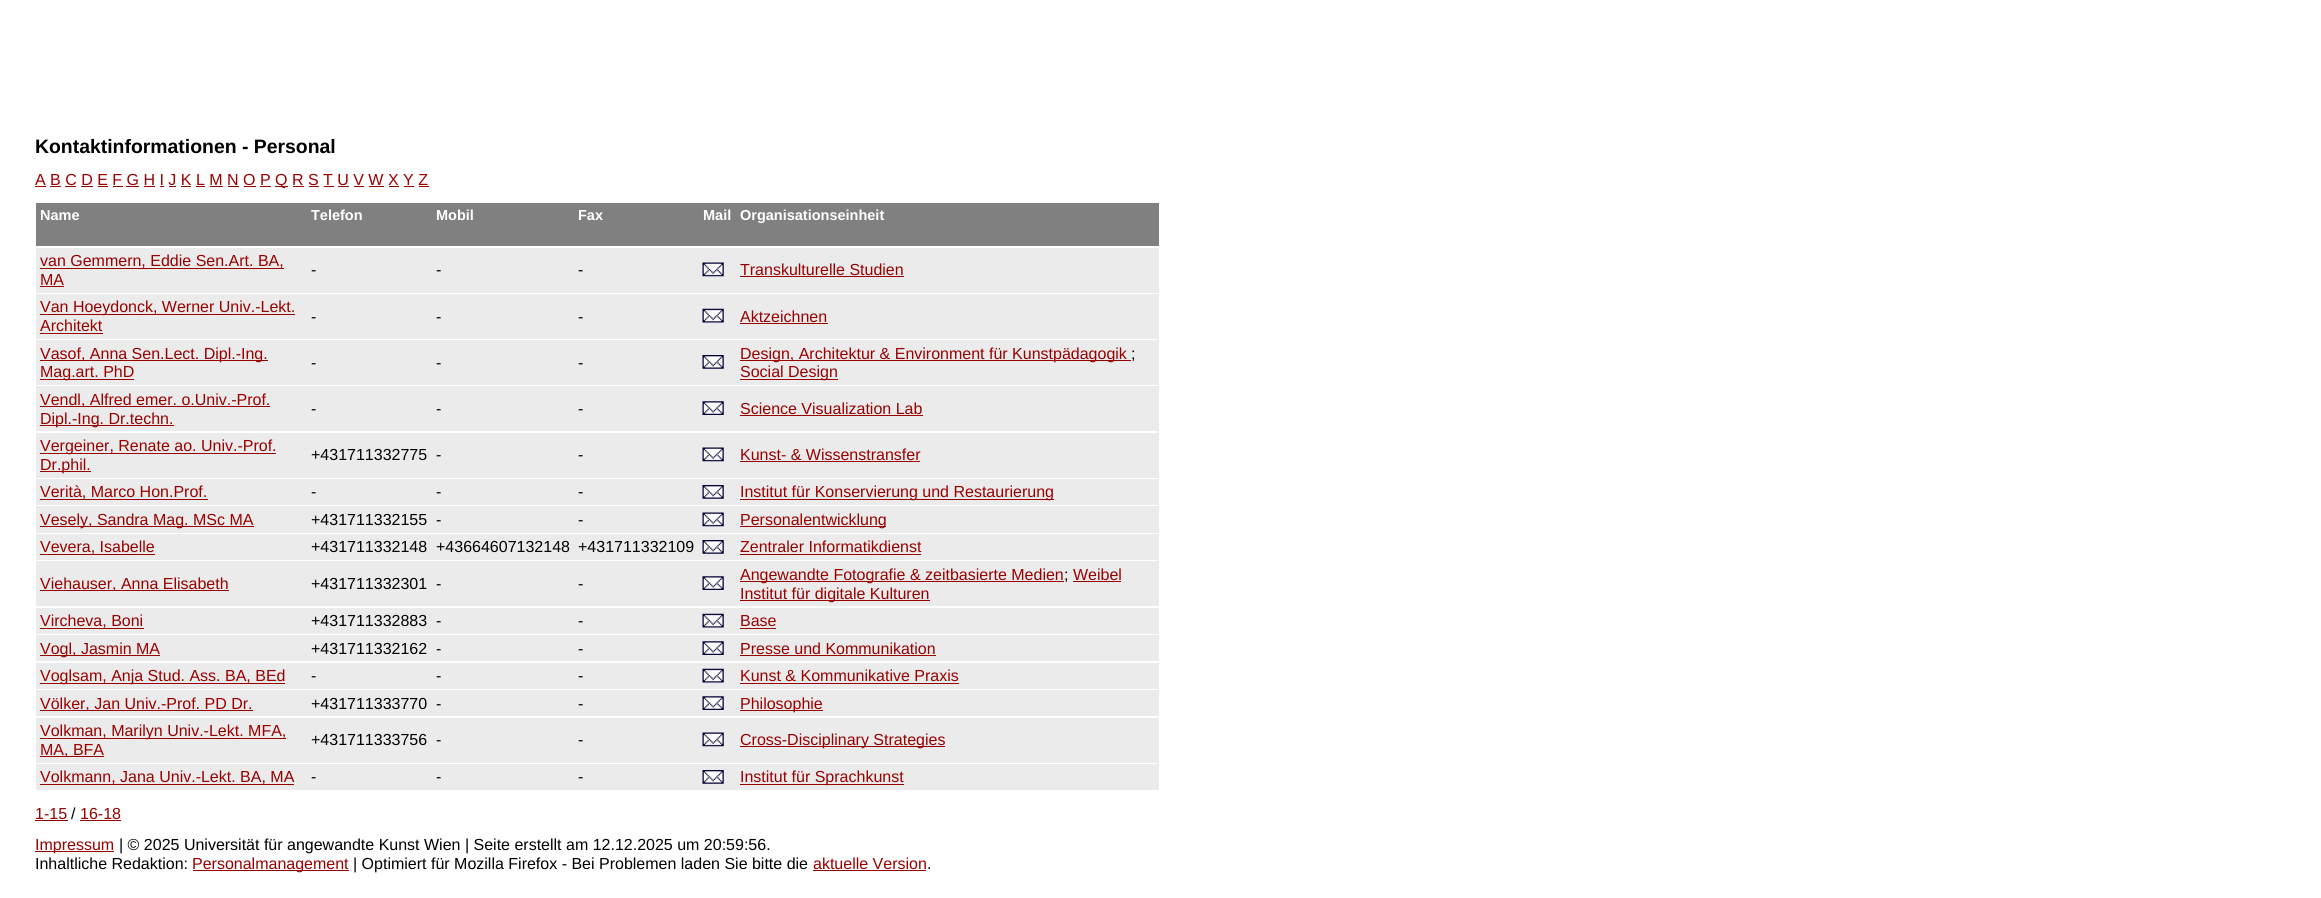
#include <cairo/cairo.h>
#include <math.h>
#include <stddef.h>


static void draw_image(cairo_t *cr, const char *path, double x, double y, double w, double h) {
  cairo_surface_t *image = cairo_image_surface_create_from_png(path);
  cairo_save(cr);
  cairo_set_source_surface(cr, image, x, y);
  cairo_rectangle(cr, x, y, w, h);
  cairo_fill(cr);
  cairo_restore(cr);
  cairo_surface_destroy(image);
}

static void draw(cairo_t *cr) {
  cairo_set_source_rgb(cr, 1, 1, 1);
  cairo_paint(cr);
  cairo_set_source_rgb(cr, 153 / 255.0, 0, 0);
  cairo_rectangle(cr, 35, 186, 11, 1);
  cairo_fill(cr);
  cairo_rectangle(cr, 275, 186, 13, 1);
  cairo_fill(cr);
  cairo_rectangle(cr, 50, 186, 11, 1);
  cairo_fill(cr);
  cairo_rectangle(cr, 65, 186, 11, 1);
  cairo_fill(cr);
  cairo_rectangle(cr, 81, 186, 12, 1);
  cairo_fill(cr);
  cairo_rectangle(cr, 98, 186, 10, 1);
  cairo_fill(cr);
  cairo_rectangle(cr, 113, 186, 10, 1);
  cairo_fill(cr);
  cairo_rectangle(cr, 126, 186, 13, 1);
  cairo_fill(cr);
  cairo_rectangle(cr, 144, 186, 11, 1);
  cairo_fill(cr);
  cairo_rectangle(cr, 160, 186, 4, 1);
  cairo_fill(cr);
  cairo_rectangle(cr, 169, 186, 7, 1);
  cairo_fill(cr);
  cairo_rectangle(cr, 181, 186, 10, 1);
  cairo_fill(cr);
  cairo_rectangle(cr, 196, 186, 9, 1);
  cairo_fill(cr);
  cairo_rectangle(cr, 210, 186, 13, 1);
  cairo_fill(cr);
  cairo_rectangle(cr, 228, 186, 11, 1);
  cairo_fill(cr);
  cairo_rectangle(cr, 244, 186, 12, 1);
  cairo_fill(cr);
  cairo_rectangle(cr, 260, 186, 11, 1);
  cairo_fill(cr);
  cairo_rectangle(cr, 293, 186, 11, 1);
  cairo_fill(cr);
  cairo_rectangle(cr, 309, 186, 10, 1);
  cairo_fill(cr);
  cairo_rectangle(cr, 324, 186, 10, 1);
  cairo_fill(cr);
  cairo_rectangle(cr, 338, 186, 11, 1);
  cairo_fill(cr);
  cairo_rectangle(cr, 354, 186, 10, 1);
  cairo_fill(cr);
  cairo_rectangle(cr, 369, 186, 15, 1);
  cairo_fill(cr);
  cairo_rectangle(cr, 389, 186, 10, 1);
  cairo_fill(cr);
  cairo_rectangle(cr, 404, 186, 10, 1);
  cairo_fill(cr);
  cairo_rectangle(cr, 419, 186, 10, 1);
  cairo_fill(cr);
  cairo_set_source_rgb(cr, 128 / 255.0, 128 / 255.0, 128 / 255.0);
  cairo_rectangle(cr, 36, 203, 1123, 43);
  cairo_fill(cr);
  cairo_set_source_rgb(cr, 235 / 255.0, 235 / 255.0, 235 / 255.0);
  cairo_rectangle(cr, 36, 248, 1123, 45);
  cairo_fill(cr);
  cairo_set_source_rgb(cr, 153 / 255.0, 0, 0);
  cairo_rectangle(cr, 40, 268, 244, 1);
  cairo_fill(cr);
  cairo_rectangle(cr, 40, 286, 24, 1);
  cairo_fill(cr);
  draw_image(cr, "images/1.png", 702, 262, 22, 15);
  cairo_rectangle(cr, 740, 276, 164, 1);
  cairo_fill(cr);
  cairo_set_source_rgb(cr, 235 / 255.0, 235 / 255.0, 235 / 255.0);
  cairo_rectangle(cr, 36, 294, 1123, 45);
  cairo_fill(cr);
  cairo_set_source_rgb(cr, 153 / 255.0, 0, 0);
  cairo_rectangle(cr, 40, 314, 255, 1);
  cairo_fill(cr);
  cairo_rectangle(cr, 40, 333, 63, 1);
  cairo_fill(cr);
  draw_image(cr, "images/2.png", 702, 308, 22, 15);
  cairo_rectangle(cr, 740, 323, 88, 1);
  cairo_fill(cr);
  cairo_set_source_rgb(cr, 235 / 255.0, 235 / 255.0, 235 / 255.0);
  cairo_rectangle(cr, 36, 340, 1123, 45);
  cairo_fill(cr);
  cairo_set_source_rgb(cr, 153 / 255.0, 0, 0);
  cairo_rectangle(cr, 40, 360, 228, 1);
  cairo_fill(cr);
  cairo_rectangle(cr, 40, 379, 94, 1);
  cairo_fill(cr);
  draw_image(cr, "images/3.png", 702, 355, 22, 14);
  cairo_rectangle(cr, 740, 360, 391, 1);
  cairo_fill(cr);
  cairo_rectangle(cr, 740, 379, 98, 1);
  cairo_fill(cr);
  cairo_set_source_rgb(cr, 235 / 255.0, 235 / 255.0, 235 / 255.0);
  cairo_rectangle(cr, 36, 386, 1123, 45);
  cairo_fill(cr);
  cairo_set_source_rgb(cr, 153 / 255.0, 0, 0);
  cairo_rectangle(cr, 40, 406, 230, 1);
  cairo_fill(cr);
  cairo_rectangle(cr, 40, 425, 134, 1);
  cairo_fill(cr);
  draw_image(cr, "images/4.png", 702, 401, 22, 14);
  cairo_rectangle(cr, 740, 415, 183, 1);
  cairo_fill(cr);
  cairo_set_source_rgb(cr, 235 / 255.0, 235 / 255.0, 235 / 255.0);
  cairo_rectangle(cr, 36, 433, 1123, 45);
  cairo_fill(cr);
  cairo_set_source_rgb(cr, 153 / 255.0, 0, 0);
  cairo_rectangle(cr, 40, 453, 236, 1);
  cairo_fill(cr);
  cairo_rectangle(cr, 40, 471, 51, 1);
  cairo_fill(cr);
  draw_image(cr, "images/1.png", 702, 447, 22, 15);
  cairo_rectangle(cr, 740, 461, 180, 1);
  cairo_fill(cr);
  cairo_set_source_rgb(cr, 235 / 255.0, 235 / 255.0, 235 / 255.0);
  cairo_rectangle(cr, 36, 479, 1123, 26);
  cairo_fill(cr);
  cairo_set_source_rgb(cr, 153 / 255.0, 0, 0);
  cairo_rectangle(cr, 40, 499, 168, 1);
  cairo_fill(cr);
  draw_image(cr, "images/3.png", 702, 485, 22, 14);
  cairo_rectangle(cr, 740, 499, 314, 1);
  cairo_fill(cr);
  cairo_set_source_rgb(cr, 235 / 255.0, 235 / 255.0, 235 / 255.0);
  cairo_rectangle(cr, 36, 506, 1123, 27);
  cairo_fill(cr);
  cairo_set_source_rgb(cr, 153 / 255.0, 0, 0);
  cairo_rectangle(cr, 40, 526, 214, 1);
  cairo_fill(cr);
  draw_image(cr, "images/5.png", 702, 512, 22, 15);
  cairo_rectangle(cr, 740, 526, 146, 1);
  cairo_fill(cr);
  cairo_set_source_rgb(cr, 235 / 255.0, 235 / 255.0, 235 / 255.0);
  cairo_rectangle(cr, 36, 534, 1123, 26);
  cairo_fill(cr);
  cairo_set_source_rgb(cr, 153 / 255.0, 0, 0);
  cairo_rectangle(cr, 40, 554, 115, 1);
  cairo_fill(cr);
  draw_image(cr, "images/3.png", 702, 540, 22, 14);
  cairo_rectangle(cr, 740, 554, 181, 1);
  cairo_fill(cr);
  cairo_set_source_rgb(cr, 235 / 255.0, 235 / 255.0, 235 / 255.0);
  cairo_rectangle(cr, 36, 561, 1123, 45);
  cairo_fill(cr);
  cairo_set_source_rgb(cr, 153 / 255.0, 0, 0);
  cairo_rectangle(cr, 40, 590, 189, 1);
  cairo_fill(cr);
  draw_image(cr, "images/4.png", 702, 576, 22, 14);
  cairo_rectangle(cr, 740, 581, 324, 1);
  cairo_fill(cr);
  cairo_rectangle(cr, 1073, 581, 48, 1);
  cairo_fill(cr);
  cairo_rectangle(cr, 740, 600, 190, 1);
  cairo_fill(cr);
  cairo_set_source_rgb(cr, 235 / 255.0, 235 / 255.0, 235 / 255.0);
  cairo_rectangle(cr, 36, 608, 1123, 26);
  cairo_fill(cr);
  cairo_set_source_rgb(cr, 153 / 255.0, 0, 0);
  cairo_rectangle(cr, 40, 628, 104, 1);
  cairo_fill(cr);
  draw_image(cr, "images/2.png", 702, 613, 22, 15);
  cairo_rectangle(cr, 740, 628, 36, 1);
  cairo_fill(cr);
  cairo_set_source_rgb(cr, 235 / 255.0, 235 / 255.0, 235 / 255.0);
  cairo_rectangle(cr, 36, 635, 1123, 26);
  cairo_fill(cr);
  cairo_set_source_rgb(cr, 153 / 255.0, 0, 0);
  cairo_rectangle(cr, 40, 655, 120, 1);
  cairo_fill(cr);
  draw_image(cr, "images/4.png", 702, 641, 22, 14);
  cairo_rectangle(cr, 740, 655, 196, 1);
  cairo_fill(cr);
  cairo_set_source_rgb(cr, 235 / 255.0, 235 / 255.0, 235 / 255.0);
  cairo_rectangle(cr, 36, 663, 1123, 26);
  cairo_fill(cr);
  cairo_set_source_rgb(cr, 153 / 255.0, 0, 0);
  cairo_rectangle(cr, 40, 683, 245, 1);
  cairo_fill(cr);
  draw_image(cr, "images/2.png", 702, 668, 22, 15);
  cairo_rectangle(cr, 740, 683, 219, 1);
  cairo_fill(cr);
  cairo_set_source_rgb(cr, 235 / 255.0, 235 / 255.0, 235 / 255.0);
  cairo_rectangle(cr, 36, 690, 1123, 26);
  cairo_fill(cr);
  cairo_set_source_rgb(cr, 153 / 255.0, 0, 0);
  cairo_rectangle(cr, 40, 710, 213, 1);
  cairo_fill(cr);
  draw_image(cr, "images/4.png", 702, 696, 22, 14);
  cairo_rectangle(cr, 740, 710, 83, 1);
  cairo_fill(cr);
  cairo_set_source_rgb(cr, 235 / 255.0, 235 / 255.0, 235 / 255.0);
  cairo_rectangle(cr, 36, 718, 1123, 45);
  cairo_fill(cr);
  cairo_set_source_rgb(cr, 153 / 255.0, 0, 0);
  cairo_rectangle(cr, 40, 738, 246, 1);
  cairo_fill(cr);
  cairo_rectangle(cr, 40, 756, 64, 1);
  cairo_fill(cr);
  draw_image(cr, "images/1.png", 702, 732, 22, 15);
  cairo_rectangle(cr, 740, 746, 205, 1);
  cairo_fill(cr);
  cairo_set_source_rgb(cr, 235 / 255.0, 235 / 255.0, 235 / 255.0);
  cairo_rectangle(cr, 36, 764, 1123, 26);
  cairo_fill(cr);
  cairo_set_source_rgb(cr, 153 / 255.0, 0, 0);
  cairo_rectangle(cr, 40, 784, 254, 1);
  cairo_fill(cr);
  draw_image(cr, "images/3.png", 702, 770, 22, 14);
  cairo_rectangle(cr, 740, 784, 164, 1);
  cairo_fill(cr);
  cairo_rectangle(cr, 35, 820, 33, 1);
  cairo_fill(cr);
  cairo_rectangle(cr, 80, 820, 41, 1);
  cairo_fill(cr);
  cairo_rectangle(cr, 35, 851, 79, 1);
  cairo_fill(cr);
  cairo_rectangle(cr, 193, 870, 156, 1);
  cairo_fill(cr);
  cairo_rectangle(cr, 813, 870, 113, 1);
  cairo_fill(cr);
  cairo_select_font_face(cr, "Liberation Sans", CAIRO_FONT_SLANT_NORMAL, CAIRO_FONT_WEIGHT_BOLD);
  cairo_set_font_size(cr, 19.4);
  cairo_set_source_rgb(cr, 0, 0, 0);
  cairo_move_to(cr, 35, 153);
  cairo_show_text(cr, "Kontaktinformationen - Personal");
  cairo_select_font_face(cr, "Liberation Sans", CAIRO_FONT_SLANT_NORMAL, CAIRO_FONT_WEIGHT_NORMAL);
  cairo_set_font_size(cr, 16);
  cairo_set_source_rgb(cr, 153 / 255.0, 0, 0);
  cairo_move_to(cr, 35, 185);
  cairo_show_text(cr, "A B C D E F G H I J K L M N O P");
  cairo_move_to(cr, 275, 185);
  cairo_show_text(cr, "Q R S T U V W X Y Z");
  cairo_select_font_face(cr, "Liberation Sans", CAIRO_FONT_SLANT_NORMAL, CAIRO_FONT_WEIGHT_BOLD);
  cairo_set_font_size(cr, 14.5);
  cairo_set_source_rgb(cr, 1, 1, 1);
  cairo_move_to(cr, 40, 220);
  cairo_show_text(cr, "Name");
  cairo_move_to(cr, 311, 220);
  cairo_show_text(cr, "Telefon");
  cairo_move_to(cr, 436, 220);
  cairo_show_text(cr, "Mobil");
  cairo_move_to(cr, 578, 220);
  cairo_show_text(cr, "Fax");
  cairo_move_to(cr, 703, 220);
  cairo_show_text(cr, "Mail");
  cairo_move_to(cr, 740, 220);
  cairo_show_text(cr, "Organisationseinheit");
  cairo_select_font_face(cr, "Liberation Sans", CAIRO_FONT_SLANT_NORMAL, CAIRO_FONT_WEIGHT_NORMAL);
  cairo_set_font_size(cr, 16);
  cairo_set_source_rgb(cr, 153 / 255.0, 0, 0);
  cairo_move_to(cr, 40, 266);
  cairo_show_text(cr, "van Gemmern, Eddie Sen.Art. BA,");
  cairo_move_to(cr, 40, 285);
  cairo_show_text(cr, "MA");
  cairo_set_source_rgb(cr, 0, 0, 0);
  cairo_move_to(cr, 311, 275);
  cairo_show_text(cr, "-");
  cairo_move_to(cr, 436, 275);
  cairo_show_text(cr, "-");
  cairo_move_to(cr, 578, 275);
  cairo_show_text(cr, "-");
  cairo_set_source_rgb(cr, 153 / 255.0, 0, 0);
  cairo_move_to(cr, 740, 275);
  cairo_show_text(cr, "Transkulturelle Studien");
  cairo_move_to(cr, 40, 312);
  cairo_show_text(cr, "Van Hoeydonck, Werner Univ.-Lekt.");
  cairo_move_to(cr, 40, 331);
  cairo_show_text(cr, "Architekt");
  cairo_set_source_rgb(cr, 0, 0, 0);
  cairo_move_to(cr, 311, 322);
  cairo_show_text(cr, "-");
  cairo_move_to(cr, 436, 322);
  cairo_show_text(cr, "-");
  cairo_move_to(cr, 578, 322);
  cairo_show_text(cr, "-");
  cairo_set_source_rgb(cr, 153 / 255.0, 0, 0);
  cairo_move_to(cr, 740, 322);
  cairo_show_text(cr, "Aktzeichnen");
  cairo_move_to(cr, 40, 359);
  cairo_show_text(cr, "Vasof, Anna Sen.Lect. Dipl.-Ing.");
  cairo_move_to(cr, 40, 377);
  cairo_show_text(cr, "Mag.art. PhD");
  cairo_set_source_rgb(cr, 0, 0, 0);
  cairo_move_to(cr, 311, 368);
  cairo_show_text(cr, "-");
  cairo_move_to(cr, 436, 368);
  cairo_show_text(cr, "-");
  cairo_move_to(cr, 578, 368);
  cairo_show_text(cr, "-");
  cairo_set_source_rgb(cr, 153 / 255.0, 0, 0);
  cairo_move_to(cr, 740, 359);
  cairo_show_text(cr, "Design, Architektur & Environment für Kunstpädagogik");
  cairo_set_source_rgb(cr, 0, 0, 0);
  cairo_move_to(cr, 1131, 359);
  cairo_show_text(cr, ";");
  cairo_set_source_rgb(cr, 153 / 255.0, 0, 0);
  cairo_move_to(cr, 740, 377);
  cairo_show_text(cr, "Social Design");
  cairo_move_to(cr, 40, 405);
  cairo_show_text(cr, "Vendl, Alfred emer. o.Univ.-Prof.");
  cairo_move_to(cr, 40, 424);
  cairo_show_text(cr, "Dipl.-Ing. Dr.techn.");
  cairo_set_source_rgb(cr, 0, 0, 0);
  cairo_move_to(cr, 311, 414);
  cairo_show_text(cr, "-");
  cairo_move_to(cr, 436, 414);
  cairo_show_text(cr, "-");
  cairo_move_to(cr, 578, 414);
  cairo_show_text(cr, "-");
  cairo_set_source_rgb(cr, 153 / 255.0, 0, 0);
  cairo_move_to(cr, 740, 414);
  cairo_show_text(cr, "Science Visualization Lab");
  cairo_move_to(cr, 40, 451);
  cairo_show_text(cr, "Vergeiner, Renate ao. Univ.-Prof.");
  cairo_move_to(cr, 40, 470);
  cairo_show_text(cr, "Dr.phil.");
  cairo_set_source_rgb(cr, 0, 0, 0);
  cairo_move_to(cr, 311, 460);
  cairo_show_text(cr, "+431711332775");
  cairo_move_to(cr, 436, 460);
  cairo_show_text(cr, "-");
  cairo_move_to(cr, 578, 460);
  cairo_show_text(cr, "-");
  cairo_set_source_rgb(cr, 153 / 255.0, 0, 0);
  cairo_move_to(cr, 740, 460);
  cairo_show_text(cr, "Kunst- & Wissenstransfer");
  cairo_move_to(cr, 40, 497);
  cairo_show_text(cr, "Verità, Marco Hon.Prof.");
  cairo_set_source_rgb(cr, 0, 0, 0);
  cairo_move_to(cr, 311, 497);
  cairo_show_text(cr, "-");
  cairo_move_to(cr, 436, 497);
  cairo_show_text(cr, "-");
  cairo_move_to(cr, 578, 497);
  cairo_show_text(cr, "-");
  cairo_set_source_rgb(cr, 153 / 255.0, 0, 0);
  cairo_move_to(cr, 740, 497);
  cairo_show_text(cr, "Institut für Konservierung und Restaurierung");
  cairo_move_to(cr, 40, 525);
  cairo_show_text(cr, "Vesely, Sandra Mag. MSc MA");
  cairo_set_source_rgb(cr, 0, 0, 0);
  cairo_move_to(cr, 311, 525);
  cairo_show_text(cr, "+431711332155");
  cairo_move_to(cr, 436, 525);
  cairo_show_text(cr, "-");
  cairo_move_to(cr, 578, 525);
  cairo_show_text(cr, "-");
  cairo_set_source_rgb(cr, 153 / 255.0, 0, 0);
  cairo_move_to(cr, 740, 525);
  cairo_show_text(cr, "Personalentwicklung");
  cairo_move_to(cr, 40, 552);
  cairo_show_text(cr, "Vevera, Isabelle");
  cairo_set_source_rgb(cr, 0, 0, 0);
  cairo_move_to(cr, 311, 552);
  cairo_show_text(cr, "+431711332148");
  cairo_move_to(cr, 436, 552);
  cairo_show_text(cr, "+43664607132148");
  cairo_move_to(cr, 578, 552);
  cairo_show_text(cr, "+431711332109");
  cairo_set_source_rgb(cr, 153 / 255.0, 0, 0);
  cairo_move_to(cr, 740, 552);
  cairo_show_text(cr, "Zentraler Informatikdienst");
  cairo_move_to(cr, 40, 589);
  cairo_show_text(cr, "Viehauser, Anna Elisabeth");
  cairo_set_source_rgb(cr, 0, 0, 0);
  cairo_move_to(cr, 311, 589);
  cairo_show_text(cr, "+431711332301");
  cairo_move_to(cr, 436, 589);
  cairo_show_text(cr, "-");
  cairo_move_to(cr, 578, 589);
  cairo_show_text(cr, "-");
  cairo_set_source_rgb(cr, 153 / 255.0, 0, 0);
  cairo_move_to(cr, 740, 580);
  cairo_show_text(cr, "Angewandte Fotografie & zeitbasierte Medien");
  cairo_set_source_rgb(cr, 0, 0, 0);
  cairo_move_to(cr, 1064, 580);
  cairo_show_text(cr, ";");
  cairo_set_source_rgb(cr, 153 / 255.0, 0, 0);
  cairo_move_to(cr, 1073, 580);
  cairo_show_text(cr, "Weibel");
  cairo_move_to(cr, 740, 599);
  cairo_show_text(cr, "Institut für digitale Kulturen");
  cairo_move_to(cr, 40, 626);
  cairo_show_text(cr, "Vircheva, Boni");
  cairo_set_source_rgb(cr, 0, 0, 0);
  cairo_move_to(cr, 311, 626);
  cairo_show_text(cr, "+431711332883");
  cairo_move_to(cr, 436, 626);
  cairo_show_text(cr, "-");
  cairo_move_to(cr, 578, 626);
  cairo_show_text(cr, "-");
  cairo_set_source_rgb(cr, 153 / 255.0, 0, 0);
  cairo_move_to(cr, 740, 626);
  cairo_show_text(cr, "Base");
  cairo_move_to(cr, 40, 654);
  cairo_show_text(cr, "Vogl, Jasmin MA");
  cairo_set_source_rgb(cr, 0, 0, 0);
  cairo_move_to(cr, 311, 654);
  cairo_show_text(cr, "+431711332162");
  cairo_move_to(cr, 436, 654);
  cairo_show_text(cr, "-");
  cairo_move_to(cr, 578, 654);
  cairo_show_text(cr, "-");
  cairo_set_source_rgb(cr, 153 / 255.0, 0, 0);
  cairo_move_to(cr, 740, 654);
  cairo_show_text(cr, "Presse und Kommunikation");
  cairo_move_to(cr, 40, 681);
  cairo_show_text(cr, "Voglsam, Anja Stud. Ass. BA, BEd");
  cairo_set_source_rgb(cr, 0, 0, 0);
  cairo_move_to(cr, 311, 681);
  cairo_show_text(cr, "-");
  cairo_move_to(cr, 436, 681);
  cairo_show_text(cr, "-");
  cairo_move_to(cr, 578, 681);
  cairo_show_text(cr, "-");
  cairo_set_source_rgb(cr, 153 / 255.0, 0, 0);
  cairo_move_to(cr, 740, 681);
  cairo_show_text(cr, "Kunst & Kommunikative Praxis");
  cairo_move_to(cr, 40, 709);
  cairo_show_text(cr, "Völker, Jan Univ.-Prof. PD Dr.");
  cairo_set_source_rgb(cr, 0, 0, 0);
  cairo_move_to(cr, 311, 709);
  cairo_show_text(cr, "+431711333770");
  cairo_move_to(cr, 436, 709);
  cairo_show_text(cr, "-");
  cairo_move_to(cr, 578, 709);
  cairo_show_text(cr, "-");
  cairo_set_source_rgb(cr, 153 / 255.0, 0, 0);
  cairo_move_to(cr, 740, 709);
  cairo_show_text(cr, "Philosophie");
  cairo_move_to(cr, 40, 736);
  cairo_show_text(cr, "Volkman, Marilyn Univ.-Lekt. MFA,");
  cairo_move_to(cr, 40, 755);
  cairo_show_text(cr, "MA, BFA");
  cairo_set_source_rgb(cr, 0, 0, 0);
  cairo_move_to(cr, 311, 745);
  cairo_show_text(cr, "+431711333756");
  cairo_move_to(cr, 436, 745);
  cairo_show_text(cr, "-");
  cairo_move_to(cr, 578, 745);
  cairo_show_text(cr, "-");
  cairo_set_source_rgb(cr, 153 / 255.0, 0, 0);
  cairo_move_to(cr, 740, 745);
  cairo_show_text(cr, "Cross-Disciplinary Strategies");
  cairo_move_to(cr, 40, 782);
  cairo_show_text(cr, "Volkmann, Jana Univ.-Lekt. BA, MA");
  cairo_set_source_rgb(cr, 0, 0, 0);
  cairo_move_to(cr, 311, 782);
  cairo_show_text(cr, "-");
  cairo_move_to(cr, 436, 782);
  cairo_show_text(cr, "-");
  cairo_move_to(cr, 578, 782);
  cairo_show_text(cr, "-");
  cairo_set_source_rgb(cr, 153 / 255.0, 0, 0);
  cairo_move_to(cr, 740, 782);
  cairo_show_text(cr, "Institut für Sprachkunst");
  cairo_move_to(cr, 35, 819);
  cairo_show_text(cr, "1-15");
  cairo_set_source_rgb(cr, 0, 0, 0);
  cairo_move_to(cr, 71, 819);
  cairo_show_text(cr, "/");
  cairo_set_source_rgb(cr, 153 / 255.0, 0, 0);
  cairo_move_to(cr, 80, 819);
  cairo_show_text(cr, "16-18");
  cairo_move_to(cr, 35, 850);
  cairo_show_text(cr, "Impressum");
  cairo_set_source_rgb(cr, 0, 0, 0);
  cairo_move_to(cr, 119, 850);
  cairo_show_text(cr, "| © 2025 Universität für angewandte Kunst Wien | Seite erstellt am 12.12.2025 um 20:59:56.");
  cairo_move_to(cr, 35, 869);
  cairo_show_text(cr, "Inhaltliche Redaktion:");
  cairo_set_source_rgb(cr, 153 / 255.0, 0, 0);
  cairo_move_to(cr, 192, 869);
  cairo_show_text(cr, "Personalmanagement");
  cairo_set_source_rgb(cr, 0, 0, 0);
  cairo_move_to(cr, 353, 869);
  cairo_show_text(cr, "| Optimiert für Mozilla Firefox - Bei Problemen laden Sie bitte die");
  cairo_set_source_rgb(cr, 153 / 255.0, 0, 0);
  cairo_move_to(cr, 813, 869);
  cairo_show_text(cr, "aktuelle Version");
  cairo_set_source_rgb(cr, 0, 0, 0);
  cairo_move_to(cr, 927, 869);
  cairo_show_text(cr, ".");
}

int main(void) {
  cairo_surface_t *surface = cairo_image_surface_create(CAIRO_FORMAT_RGB24, 2321, 898);
  cairo_t *cr = cairo_create(surface);
  cairo_font_options_t *options = cairo_font_options_create();
  cairo_font_options_set_hint_metrics(options, CAIRO_HINT_METRICS_OFF);
  cairo_font_options_set_hint_style(options, CAIRO_HINT_STYLE_NONE);
  cairo_set_font_options(cr, options);
  cairo_set_miter_limit(cr, 4);
  draw(cr);
  cairo_surface_write_to_png(surface, "out.png");
  cairo_font_options_destroy(options);
  cairo_destroy(cr);
  cairo_surface_destroy(surface);
  return 0;
}
